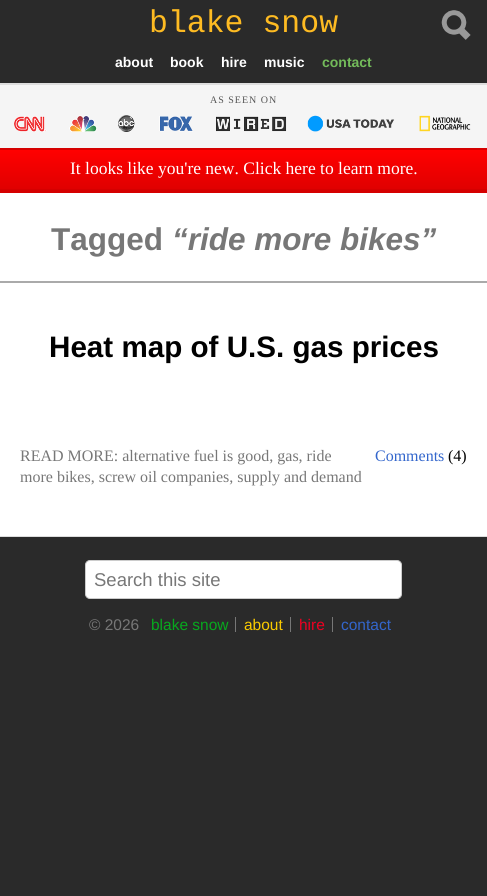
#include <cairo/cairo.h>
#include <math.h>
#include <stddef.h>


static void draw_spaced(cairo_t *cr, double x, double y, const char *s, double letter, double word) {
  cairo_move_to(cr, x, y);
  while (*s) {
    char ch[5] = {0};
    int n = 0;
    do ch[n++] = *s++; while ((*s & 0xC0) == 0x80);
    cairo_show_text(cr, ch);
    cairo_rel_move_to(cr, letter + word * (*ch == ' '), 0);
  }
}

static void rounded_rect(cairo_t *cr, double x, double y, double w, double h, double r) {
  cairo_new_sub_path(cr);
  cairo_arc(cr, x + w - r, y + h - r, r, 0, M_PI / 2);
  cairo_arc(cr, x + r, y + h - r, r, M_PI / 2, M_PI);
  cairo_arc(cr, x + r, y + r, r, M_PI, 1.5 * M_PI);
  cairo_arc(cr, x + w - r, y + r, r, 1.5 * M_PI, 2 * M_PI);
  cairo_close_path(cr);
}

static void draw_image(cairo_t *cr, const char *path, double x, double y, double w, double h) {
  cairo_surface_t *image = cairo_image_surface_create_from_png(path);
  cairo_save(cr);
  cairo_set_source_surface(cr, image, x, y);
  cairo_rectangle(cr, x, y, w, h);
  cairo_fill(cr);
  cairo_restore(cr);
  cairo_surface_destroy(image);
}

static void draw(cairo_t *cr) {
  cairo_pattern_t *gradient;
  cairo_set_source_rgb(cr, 42 / 255.0, 42 / 255.0, 42 / 255.0);
  cairo_paint(cr);
  draw_image(cr, "images/1.png", 441, 10, 30, 30);
  cairo_set_source_rgb(cr, 245 / 255.0, 245 / 255.0, 245 / 255.0);
  cairo_rectangle(cr, 0, 85, 487, 63);
  cairo_fill(cr);
  cairo_set_source_rgb(cr, 221 / 255.0, 221 / 255.0, 221 / 255.0);
  cairo_rectangle(cr, 0, 83, 487, 2);
  cairo_fill(cr);
  draw_image(cr, "images/2.png", 14, 115, 457, 17);
  gradient = cairo_pattern_create_linear(244, 150, 244, 189);
  cairo_pattern_add_color_stop_rgba(gradient, 0, 1, 0, 0, 1);
  cairo_pattern_add_color_stop_rgba(gradient, 1, 224 / 255.0, 0, 0, 1);
  cairo_set_source(cr, gradient);
  cairo_pattern_destroy(gradient);
  cairo_rectangle(cr, 0, 150, 487, 39);
  cairo_fill(cr);
  cairo_set_source_rgb(cr, 213 / 255.0, 0, 0);
  cairo_rectangle(cr, 0, 148, 487, 2);
  cairo_fill(cr);
  cairo_rectangle(cr, 0, 189, 487, 4);
  cairo_fill(cr);
  cairo_set_source_rgb(cr, 1, 1, 1);
  cairo_rectangle(cr, 0, 193, 487, 343);
  cairo_fill(cr);
  cairo_set_source_rgb(cr, 170 / 255.0, 170 / 255.0, 170 / 255.0);
  cairo_rectangle(cr, 0, 281, 487, 2);
  cairo_fill(cr);
  cairo_set_source_rgb(cr, 221 / 255.0, 221 / 255.0, 221 / 255.0);
  cairo_rectangle(cr, 0, 536, 487, 1);
  cairo_fill(cr);
  cairo_set_source_rgb(cr, 1, 1, 1);
  rounded_rect(cr, 85.5, 560.5, 316, 38, 4.5);
  cairo_fill_preserve(cr);
  cairo_set_source_rgb(cr, 204 / 255.0, 204 / 255.0, 204 / 255.0);
  cairo_set_line_width(cr, 1);
  cairo_stroke(cr);
  cairo_set_source_rgb(cr, 119 / 255.0, 119 / 255.0, 119 / 255.0);
  cairo_rectangle(cr, 235, 617, 1, 15);
  cairo_fill(cr);
  cairo_rectangle(cr, 290, 617, 1, 15);
  cairo_fill(cr);
  cairo_rectangle(cr, 332, 617, 1, 15);
  cairo_fill(cr);
  cairo_select_font_face(cr, "Liberation Mono", CAIRO_FONT_SLANT_NORMAL, CAIRO_FONT_WEIGHT_NORMAL);
  cairo_set_font_size(cr, 31.5);
  cairo_set_source_rgb(cr, 254 / 255.0, 187 / 255.0, 34 / 255.0);
  cairo_move_to(cr, 149, 32);
  cairo_show_text(cr, "blake snow");
  cairo_select_font_face(cr, "Liberation Sans", CAIRO_FONT_SLANT_NORMAL, CAIRO_FONT_WEIGHT_BOLD);
  cairo_set_font_size(cr, 14);
  cairo_set_source_rgb(cr, 1, 1, 1);
  cairo_move_to(cr, 115, 67);
  cairo_show_text(cr, "about");
  cairo_move_to(cr, 170, 67);
  cairo_show_text(cr, "book");
  cairo_move_to(cr, 221, 67);
  cairo_show_text(cr, "hire");
  cairo_move_to(cr, 264, 67);
  cairo_show_text(cr, "music");
  cairo_set_source_rgb(cr, 115 / 255.0, 186 / 255.0, 90 / 255.0);
  cairo_move_to(cr, 322, 67);
  cairo_show_text(cr, "contact");
  cairo_select_font_face(cr, "Liberation Serif", CAIRO_FONT_SLANT_NORMAL, CAIRO_FONT_WEIGHT_NORMAL);
  cairo_set_font_size(cr, 10);
  cairo_set_source_rgb(cr, 85 / 255.0, 85 / 255.0, 85 / 255.0);
  draw_spaced(cr, 210, 103, "AS SEEN ON", 1, 0);
  cairo_set_font_size(cr, 17.5);
  cairo_set_source_rgb(cr, 1, 1, 1);
  cairo_move_to(cr, 70, 174);
  cairo_show_text(cr, "It looks like you're new. Click here to learn more.");
  cairo_select_font_face(cr, "Liberation Sans", CAIRO_FONT_SLANT_NORMAL, CAIRO_FONT_WEIGHT_BOLD);
  cairo_set_font_size(cr, 31.5);
  cairo_set_source_rgb(cr, 119 / 255.0, 119 / 255.0, 119 / 255.0);
  cairo_move_to(cr, 51, 250);
  cairo_show_text(cr, "Tagged");
  cairo_select_font_face(cr, "Liberation Sans", CAIRO_FONT_SLANT_ITALIC, CAIRO_FONT_WEIGHT_BOLD);
  cairo_move_to(cr, 172, 250);
  cairo_show_text(cr, "“ride more bikes”");
  cairo_select_font_face(cr, "Liberation Sans", CAIRO_FONT_SLANT_NORMAL, CAIRO_FONT_WEIGHT_BOLD);
  cairo_set_font_size(cr, 29.6);
  cairo_set_source_rgb(cr, 0, 0, 0);
  cairo_move_to(cr, 49, 357);
  cairo_show_text(cr, "Heat map of U.S. gas prices");
  cairo_select_font_face(cr, "Liberation Serif", CAIRO_FONT_SLANT_NORMAL, CAIRO_FONT_WEIGHT_NORMAL);
  cairo_set_font_size(cr, 16);
  cairo_set_source_rgb(cr, 119 / 255.0, 119 / 255.0, 119 / 255.0);
  cairo_move_to(cr, 20, 461);
  cairo_show_text(cr, "READ MORE: alternative fuel is good, gas, ride");
  cairo_move_to(cr, 20, 482);
  cairo_show_text(cr, "more bikes, screw oil companies, supply and demand");
  cairo_set_source_rgb(cr, 51 / 255.0, 102 / 255.0, 204 / 255.0);
  cairo_move_to(cr, 375, 461);
  cairo_show_text(cr, "Comments");
  cairo_set_source_rgb(cr, 0, 0, 0);
  cairo_move_to(cr, 448, 461);
  cairo_show_text(cr, "(4)");
  cairo_select_font_face(cr, "Liberation Sans", CAIRO_FONT_SLANT_NORMAL, CAIRO_FONT_WEIGHT_NORMAL);
  cairo_set_font_size(cr, 18.5);
  cairo_set_source_rgb(cr, 119 / 255.0, 119 / 255.0, 119 / 255.0);
  cairo_move_to(cr, 94, 586);
  cairo_show_text(cr, "Search this site");
  cairo_set_font_size(cr, 15.5);
  cairo_move_to(cr, 89, 630);
  cairo_show_text(cr, "© 2026");
  cairo_set_source_rgb(cr, 7 / 255.0, 168 / 255.0, 30 / 255.0);
  cairo_move_to(cr, 151, 630);
  cairo_show_text(cr, "blake snow");
  cairo_set_source_rgb(cr, 249 / 255.0, 202 / 255.0, 0);
  cairo_move_to(cr, 244, 630);
  cairo_show_text(cr, "about");
  cairo_set_source_rgb(cr, 237 / 255.0, 0, 33 / 255.0);
  cairo_move_to(cr, 299, 630);
  cairo_show_text(cr, "hire");
  cairo_set_source_rgb(cr, 51 / 255.0, 102 / 255.0, 204 / 255.0);
  cairo_move_to(cr, 341, 630);
  cairo_show_text(cr, "contact");
}

int main(void) {
  cairo_surface_t *surface = cairo_image_surface_create(CAIRO_FORMAT_RGB24, 487, 896);
  cairo_t *cr = cairo_create(surface);
  cairo_font_options_t *options = cairo_font_options_create();
  cairo_font_options_set_hint_metrics(options, CAIRO_HINT_METRICS_OFF);
  cairo_font_options_set_hint_style(options, CAIRO_HINT_STYLE_NONE);
  cairo_set_font_options(cr, options);
  cairo_set_miter_limit(cr, 4);
  draw(cr);
  cairo_surface_write_to_png(surface, "out.png");
  cairo_font_options_destroy(options);
  cairo_destroy(cr);
  cairo_surface_destroy(surface);
  return 0;
}
